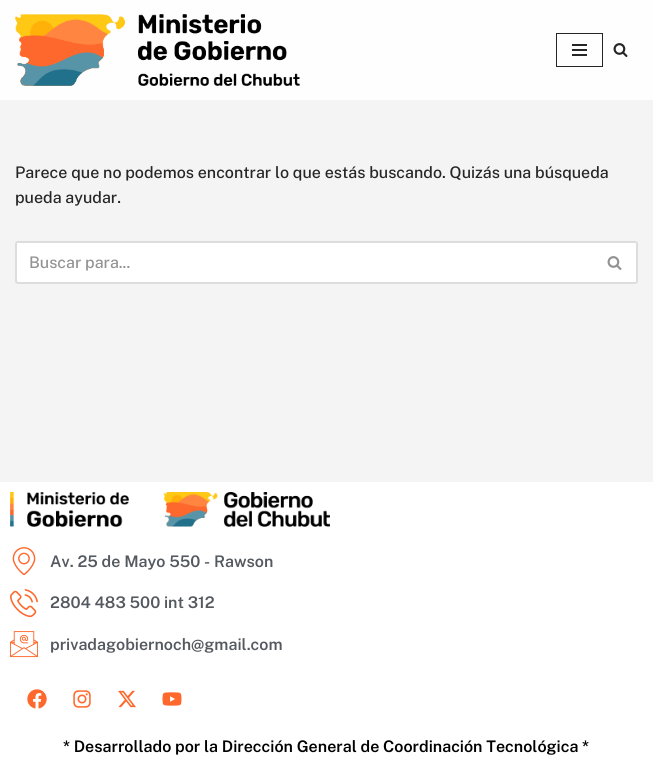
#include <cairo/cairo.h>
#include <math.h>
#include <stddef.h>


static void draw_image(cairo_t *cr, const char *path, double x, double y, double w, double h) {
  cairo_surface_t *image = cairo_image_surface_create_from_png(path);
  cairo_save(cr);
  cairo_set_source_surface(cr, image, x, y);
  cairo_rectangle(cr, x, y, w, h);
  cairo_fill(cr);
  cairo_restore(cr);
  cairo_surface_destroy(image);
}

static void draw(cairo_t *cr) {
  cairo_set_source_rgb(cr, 244 / 255.0, 244 / 255.0, 244 / 255.0);
  cairo_paint(cr);
  cairo_set_source_rgb(cr, 254 / 255.0, 254 / 255.0, 254 / 255.0);
  cairo_rectangle(cr, 0, 0, 653, 100);
  cairo_fill(cr);
  draw_image(cr, "images/1.png", 15, 14, 285, 72);
  cairo_rectangle(cr, 556.5, 33.5, 46, 33);
  cairo_set_source_rgb(cr, 39 / 255.0, 38 / 255.0, 38 / 255.0);
  cairo_set_line_width(cr, 1);
  cairo_stroke(cr);
  cairo_rectangle(cr, 572, 44, 15, 2);
  cairo_fill(cr);
  cairo_rectangle(cr, 572, 49, 15, 2);
  cairo_fill(cr);
  cairo_rectangle(cr, 572, 54, 15, 2);
  cairo_fill(cr);
  draw_image(cr, "images/2.png", 613, 43, 15, 14);
  cairo_set_source_rgb(cr, 1, 1, 1);
  cairo_new_path(cr);
  cairo_move_to(cr, 18, 241);
  cairo_line_to(cr, 593, 241);
  cairo_line_to(cr, 593, 284);
  cairo_line_to(cr, 18, 284);
  cairo_curve_to(cr, 16.5, 284, 15, 282.5, 15, 281);
  cairo_line_to(cr, 15, 244);
  cairo_curve_to(cr, 15, 242.5, 16.5, 241, 18, 241);
  cairo_close_path(cr);
  cairo_fill(cr);
  cairo_set_source_rgb(cr, 221 / 255.0, 221 / 255.0, 221 / 255.0);
  cairo_set_fill_rule(cr, CAIRO_FILL_RULE_EVEN_ODD);
  cairo_new_path(cr);
  cairo_move_to(cr, 18, 241);
  cairo_line_to(cr, 593, 241);
  cairo_line_to(cr, 593, 284);
  cairo_line_to(cr, 18, 284);
  cairo_curve_to(cr, 16, 284, 15, 283, 15, 281);
  cairo_line_to(cr, 15, 244);
  cairo_curve_to(cr, 15, 242, 16, 241, 18, 241);
  cairo_close_path(cr);
  cairo_move_to(cr, 18, 243);
  cairo_line_to(cr, 593, 243);
  cairo_line_to(cr, 593, 282);
  cairo_line_to(cr, 18, 282);
  cairo_line_to(cr, 17, 281);
  cairo_line_to(cr, 17, 243);
  cairo_close_path(cr);
  cairo_fill(cr);
  cairo_set_source_rgb(cr, 1, 1, 1);
  cairo_new_path(cr);
  cairo_move_to(cr, 593, 241);
  cairo_line_to(cr, 635, 241);
  cairo_curve_to(cr, 636.5, 241, 638, 242.5, 638, 244);
  cairo_line_to(cr, 638, 281);
  cairo_curve_to(cr, 638, 282.5, 636.5, 284, 635, 284);
  cairo_line_to(cr, 593, 284);
  cairo_close_path(cr);
  cairo_fill(cr);
  cairo_set_source_rgb(cr, 221 / 255.0, 221 / 255.0, 221 / 255.0);
  cairo_new_path(cr);
  cairo_move_to(cr, 593, 241);
  cairo_line_to(cr, 635, 241);
  cairo_curve_to(cr, 637, 241, 638, 242, 638, 244);
  cairo_line_to(cr, 638, 281);
  cairo_curve_to(cr, 638, 283, 637, 284, 635, 284);
  cairo_line_to(cr, 593, 284);
  cairo_close_path(cr);
  cairo_move_to(cr, 593, 243);
  cairo_line_to(cr, 635, 243);
  cairo_curve_to(cr, 636, 243, 636, 243, 636, 244);
  cairo_line_to(cr, 636, 281);
  cairo_curve_to(cr, 636, 282, 636, 282, 635, 282);
  cairo_line_to(cr, 593, 282);
  cairo_close_path(cr);
  cairo_fill(cr);
  draw_image(cr, "images/3.png", 607, 256, 15, 14);
  cairo_set_source_rgb(cr, 1, 1, 1);
  cairo_rectangle(cr, 0, 482, 653, 283);
  cairo_fill(cr);
  draw_image(cr, "images/4.png", 10, 492, 320, 35);
  draw_image(cr, "images/5.png", 12, 547, 24, 29);
  draw_image(cr, "images/6.png", 10, 589, 28, 29);
  draw_image(cr, "images/7.png", 10, 631, 28, 27);
  draw_image(cr, "images/8.png", 27, 689, 20, 20);
  draw_image(cr, "images/9.png", 73, 690, 18, 18);
  draw_image(cr, "images/10.png", 118, 690, 18, 18);
  draw_image(cr, "images/11.png", 162, 692, 20, 14);
  cairo_select_font_face(cr, "Public Sans Medium", CAIRO_FONT_SLANT_NORMAL, CAIRO_FONT_WEIGHT_NORMAL);
  cairo_set_font_size(cr, 16);
  cairo_set_source_rgb(cr, 39 / 255.0, 38 / 255.0, 38 / 255.0);
  cairo_move_to(cr, 15, 178);
  cairo_show_text(cr, "Parece que no podemos encontrar lo que estás buscando. Quizás una búsqueda");
  cairo_move_to(cr, 15, 203);
  cairo_show_text(cr, "pueda ayudar.");
  cairo_set_source_rgb(cr, 147 / 255.0, 147 / 255.0, 147 / 255.0);
  cairo_move_to(cr, 29, 268);
  cairo_show_text(cr, "Buscar para...");
  cairo_select_font_face(cr, "Public Sans SemiBold", CAIRO_FONT_SLANT_NORMAL, CAIRO_FONT_WEIGHT_NORMAL);
  cairo_set_source_rgb(cr, 84 / 255.0, 89 / 255.0, 95 / 255.0);
  cairo_move_to(cr, 50, 567);
  cairo_show_text(cr, "Av. 25 de Mayo 550 - Rawson");
  cairo_move_to(cr, 50, 608);
  cairo_show_text(cr, "2804 483 500 int 312");
  cairo_move_to(cr, 50, 650);
  cairo_show_text(cr, "privadagobiernoch@gmail.com");
  cairo_set_source_rgb(cr, 0, 0, 0);
  cairo_move_to(cr, 63, 752);
  cairo_show_text(cr, "* Desarrollado por la Dirección General de Coordinación Tecnológica *");
}

int main(void) {
  cairo_surface_t *surface = cairo_image_surface_create(CAIRO_FORMAT_RGB24, 653, 765);
  cairo_t *cr = cairo_create(surface);
  cairo_font_options_t *options = cairo_font_options_create();
  cairo_font_options_set_hint_metrics(options, CAIRO_HINT_METRICS_OFF);
  cairo_font_options_set_hint_style(options, CAIRO_HINT_STYLE_NONE);
  cairo_set_font_options(cr, options);
  cairo_set_miter_limit(cr, 4);
  draw(cr);
  cairo_surface_write_to_png(surface, "out.png");
  cairo_font_options_destroy(options);
  cairo_destroy(cr);
  cairo_surface_destroy(surface);
  return 0;
}
